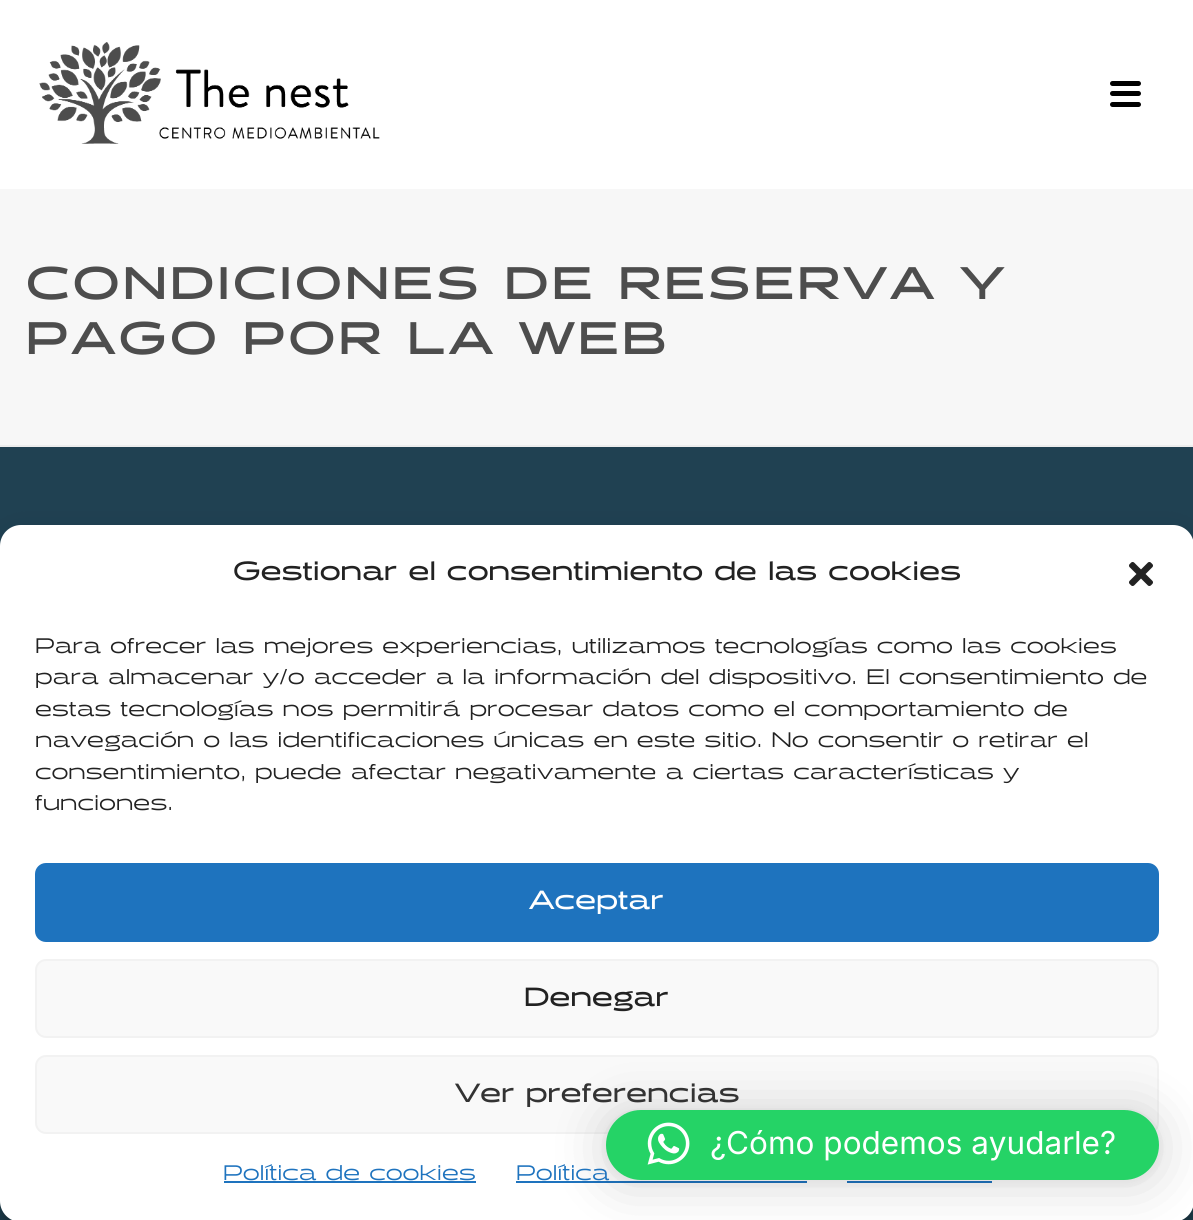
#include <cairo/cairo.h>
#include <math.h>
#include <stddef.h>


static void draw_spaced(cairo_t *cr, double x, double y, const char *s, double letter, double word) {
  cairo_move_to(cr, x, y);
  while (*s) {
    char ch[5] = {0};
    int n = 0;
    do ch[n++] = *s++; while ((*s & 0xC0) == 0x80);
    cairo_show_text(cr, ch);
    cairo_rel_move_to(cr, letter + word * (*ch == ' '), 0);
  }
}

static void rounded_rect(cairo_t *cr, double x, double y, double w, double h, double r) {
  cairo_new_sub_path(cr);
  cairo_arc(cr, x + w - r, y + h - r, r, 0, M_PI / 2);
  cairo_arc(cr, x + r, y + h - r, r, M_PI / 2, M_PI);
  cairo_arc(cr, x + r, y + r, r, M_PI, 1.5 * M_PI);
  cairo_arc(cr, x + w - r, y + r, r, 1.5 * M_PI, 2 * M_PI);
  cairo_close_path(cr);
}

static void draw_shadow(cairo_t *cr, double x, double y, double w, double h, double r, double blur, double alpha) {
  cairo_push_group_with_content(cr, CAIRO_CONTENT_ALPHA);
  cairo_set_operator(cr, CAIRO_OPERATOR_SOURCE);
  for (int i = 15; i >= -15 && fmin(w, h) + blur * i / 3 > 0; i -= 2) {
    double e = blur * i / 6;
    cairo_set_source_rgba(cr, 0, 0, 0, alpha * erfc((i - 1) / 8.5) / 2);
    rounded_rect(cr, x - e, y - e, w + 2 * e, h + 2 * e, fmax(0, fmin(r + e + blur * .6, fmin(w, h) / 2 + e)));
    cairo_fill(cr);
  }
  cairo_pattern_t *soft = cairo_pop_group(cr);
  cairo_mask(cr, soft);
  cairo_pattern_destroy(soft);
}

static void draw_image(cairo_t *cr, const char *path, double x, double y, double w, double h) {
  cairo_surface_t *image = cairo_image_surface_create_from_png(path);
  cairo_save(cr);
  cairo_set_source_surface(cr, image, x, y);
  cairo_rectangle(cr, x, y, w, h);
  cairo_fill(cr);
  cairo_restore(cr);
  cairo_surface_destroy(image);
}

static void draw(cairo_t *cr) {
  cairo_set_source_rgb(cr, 1, 1, 1);
  cairo_paint(cr);
  cairo_set_source_rgb(cr, 237 / 255.0, 237 / 255.0, 237 / 255.0);
  cairo_rectangle(cr, 0, 445, 1193, 2);
  cairo_fill(cr);
  draw_image(cr, "images/1.png", 39, 42, 341, 102);
  cairo_set_source_rgb(cr, 0, 0, 0);
  rounded_rect(cr, 1110, 81, 31, 5, 2.5);
  cairo_fill(cr);
  rounded_rect(cr, 1110, 91, 31, 5, 2.5);
  cairo_fill(cr);
  rounded_rect(cr, 1110, 102, 31, 5, 2.5);
  cairo_fill(cr);
  cairo_set_source_rgb(cr, 247 / 255.0, 247 / 255.0, 247 / 255.0);
  cairo_rectangle(cr, 0, 189, 1193, 256);
  cairo_fill(cr);
  cairo_set_source_rgb(cr, 32 / 255.0, 65 / 255.0, 82 / 255.0);
  cairo_rectangle(cr, 0, 447, 1193, 773);
  cairo_fill(cr);
  cairo_set_source_rgb(cr, 0, 0, 0);
  draw_shadow(cr, 0, 536, 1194, 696, 21, 5, 0.23);
  draw_shadow(cr, 0, 543, 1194, 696, 21, 17.5, 0.19);
  cairo_set_source_rgb(cr, 1, 1, 1);
  rounded_rect(cr, 0, 525, 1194, 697, 21);
  cairo_fill(cr);
  draw_image(cr, "images/2.png", 1129, 562, 24, 24);
  cairo_set_source_rgb(cr, 30 / 255.0, 115 / 255.0, 190 / 255.0);
  rounded_rect(cr, 36, 864, 1122, 77, 10);
  cairo_fill_preserve(cr);
  cairo_stroke(cr);
  cairo_set_source_rgb(cr, 249 / 255.0, 249 / 255.0, 249 / 255.0);
  rounded_rect(cr, 36, 960, 1122, 77, 10);
  cairo_fill_preserve(cr);
  cairo_set_source_rgb(cr, 242 / 255.0, 242 / 255.0, 242 / 255.0);
  cairo_stroke(cr);
  cairo_set_source_rgb(cr, 249 / 255.0, 249 / 255.0, 249 / 255.0);
  rounded_rect(cr, 36, 1056, 1122, 77, 10);
  cairo_fill_preserve(cr);
  cairo_set_source_rgb(cr, 242 / 255.0, 242 / 255.0, 242 / 255.0);
  cairo_stroke(cr);
  cairo_set_source_rgb(cr, 30 / 255.0, 115 / 255.0, 190 / 255.0);
  cairo_rectangle(cr, 224, 1181, 252, 2);
  cairo_fill(cr);
  cairo_rectangle(cr, 516, 1181, 291, 2);
  cairo_fill(cr);
  cairo_rectangle(cr, 847, 1181, 145, 2);
  cairo_fill(cr);
  cairo_set_source_rgb(cr, 0, 0, 0);
  draw_shadow(cr, 606, 1113, 553, 70, 35, 28, 0.16);
  draw_shadow(cr, 606, 1111, 553, 70, 35, 5, 0.06);
  cairo_select_font_face(cr, "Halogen", CAIRO_FONT_SLANT_NORMAL, CAIRO_FONT_WEIGHT_BOLD);
  cairo_set_font_size(cr, 45.5);
  cairo_set_source_rgb(cr, 77 / 255.0, 77 / 255.0, 77 / 255.0);
  draw_spaced(cr, 26, 299, "CONDICIONES DE RESERVA Y", 3.5, 0);
  draw_spaced(cr, 26, 354, "PAGO POR LA WEB", 3.5, 0);
  cairo_select_font_face(cr, "Halogen Medium", CAIRO_FONT_SLANT_NORMAL, CAIRO_FONT_WEIGHT_NORMAL);
  cairo_set_font_size(cr, 26.25);
  cairo_set_source_rgb(cr, 34 / 255.0, 34 / 255.0, 34 / 255.0);
  cairo_move_to(cr, 233, 580);
  cairo_show_text(cr, "Gestionar el consentimiento de las cookies");
  cairo_select_font_face(cr, "Halogen", CAIRO_FONT_SLANT_NORMAL, CAIRO_FONT_WEIGHT_NORMAL);
  cairo_set_font_size(cr, 21);
  cairo_move_to(cr, 35, 653);
  cairo_show_text(cr, "Para ofrecer las mejores experiencias, utilizamos tecnologías como las cookies");
  cairo_move_to(cr, 35, 684);
  cairo_show_text(cr, "para almacenar y/o acceder a la información del dispositivo. El consentimiento de");
  cairo_move_to(cr, 35, 716);
  cairo_show_text(cr, "estas tecnologías nos permitirá procesar datos como el comportamiento de");
  cairo_move_to(cr, 35, 747);
  cairo_show_text(cr, "navegación o las identificaciones únicas en este sitio. No consentir o retirar el");
  cairo_move_to(cr, 35, 779);
  cairo_show_text(cr, "consentimiento, puede afectar negativamente a ciertas características y");
  cairo_move_to(cr, 35, 810);
  cairo_show_text(cr, "funciones.");
  cairo_select_font_face(cr, "Halogen Medium", CAIRO_FONT_SLANT_NORMAL, CAIRO_FONT_WEIGHT_NORMAL);
  cairo_set_font_size(cr, 26.25);
  cairo_set_source_rgb(cr, 1, 1, 1);
  cairo_move_to(cr, 529, 909);
  cairo_show_text(cr, "Aceptar");
  cairo_set_source_rgb(cr, 34 / 255.0, 34 / 255.0, 34 / 255.0);
  cairo_move_to(cr, 524, 1006);
  cairo_show_text(cr, "Denegar");
  cairo_set_source_rgb(cr, 51 / 255.0, 51 / 255.0, 51 / 255.0);
  cairo_move_to(cr, 455, 1102);
  cairo_show_text(cr, "Ver preferencias");
  cairo_select_font_face(cr, "Halogen", CAIRO_FONT_SLANT_NORMAL, CAIRO_FONT_WEIGHT_NORMAL);
  cairo_set_font_size(cr, 21);
  cairo_set_source_rgb(cr, 30 / 255.0, 115 / 255.0, 190 / 255.0);
  cairo_move_to(cr, 223, 1180);
  cairo_show_text(cr, "Política de cookies");
  cairo_move_to(cr, 516, 1180);
  cairo_show_text(cr, "Política");
  cairo_set_source_rgb(cr, 37 / 255.0, 211 / 255.0, 102 / 255.0);
  rounded_rect(cr, 606, 1110, 553, 70, 35);
  cairo_fill(cr);
  draw_image(cr, "images/3.png", 647, 1122, 43, 43);
  cairo_select_font_face(cr, "Inter", CAIRO_FONT_SLANT_NORMAL, CAIRO_FONT_WEIGHT_NORMAL);
  cairo_set_font_size(cr, 31.5);
  cairo_set_source_rgb(cr, 1, 1, 1);
  cairo_move_to(cr, 710, 1154);
  cairo_show_text(cr, "¿Cómo podemos ayudarle?");
}

int main(void) {
  cairo_surface_t *surface = cairo_image_surface_create(CAIRO_FORMAT_RGB24, 1193, 1220);
  cairo_t *cr = cairo_create(surface);
  cairo_font_options_t *options = cairo_font_options_create();
  cairo_font_options_set_hint_metrics(options, CAIRO_HINT_METRICS_OFF);
  cairo_font_options_set_hint_style(options, CAIRO_HINT_STYLE_NONE);
  cairo_set_font_options(cr, options);
  cairo_set_miter_limit(cr, 4);
  draw(cr);
  cairo_surface_write_to_png(surface, "out.png");
  cairo_font_options_destroy(options);
  cairo_destroy(cr);
  cairo_surface_destroy(surface);
  return 0;
}
